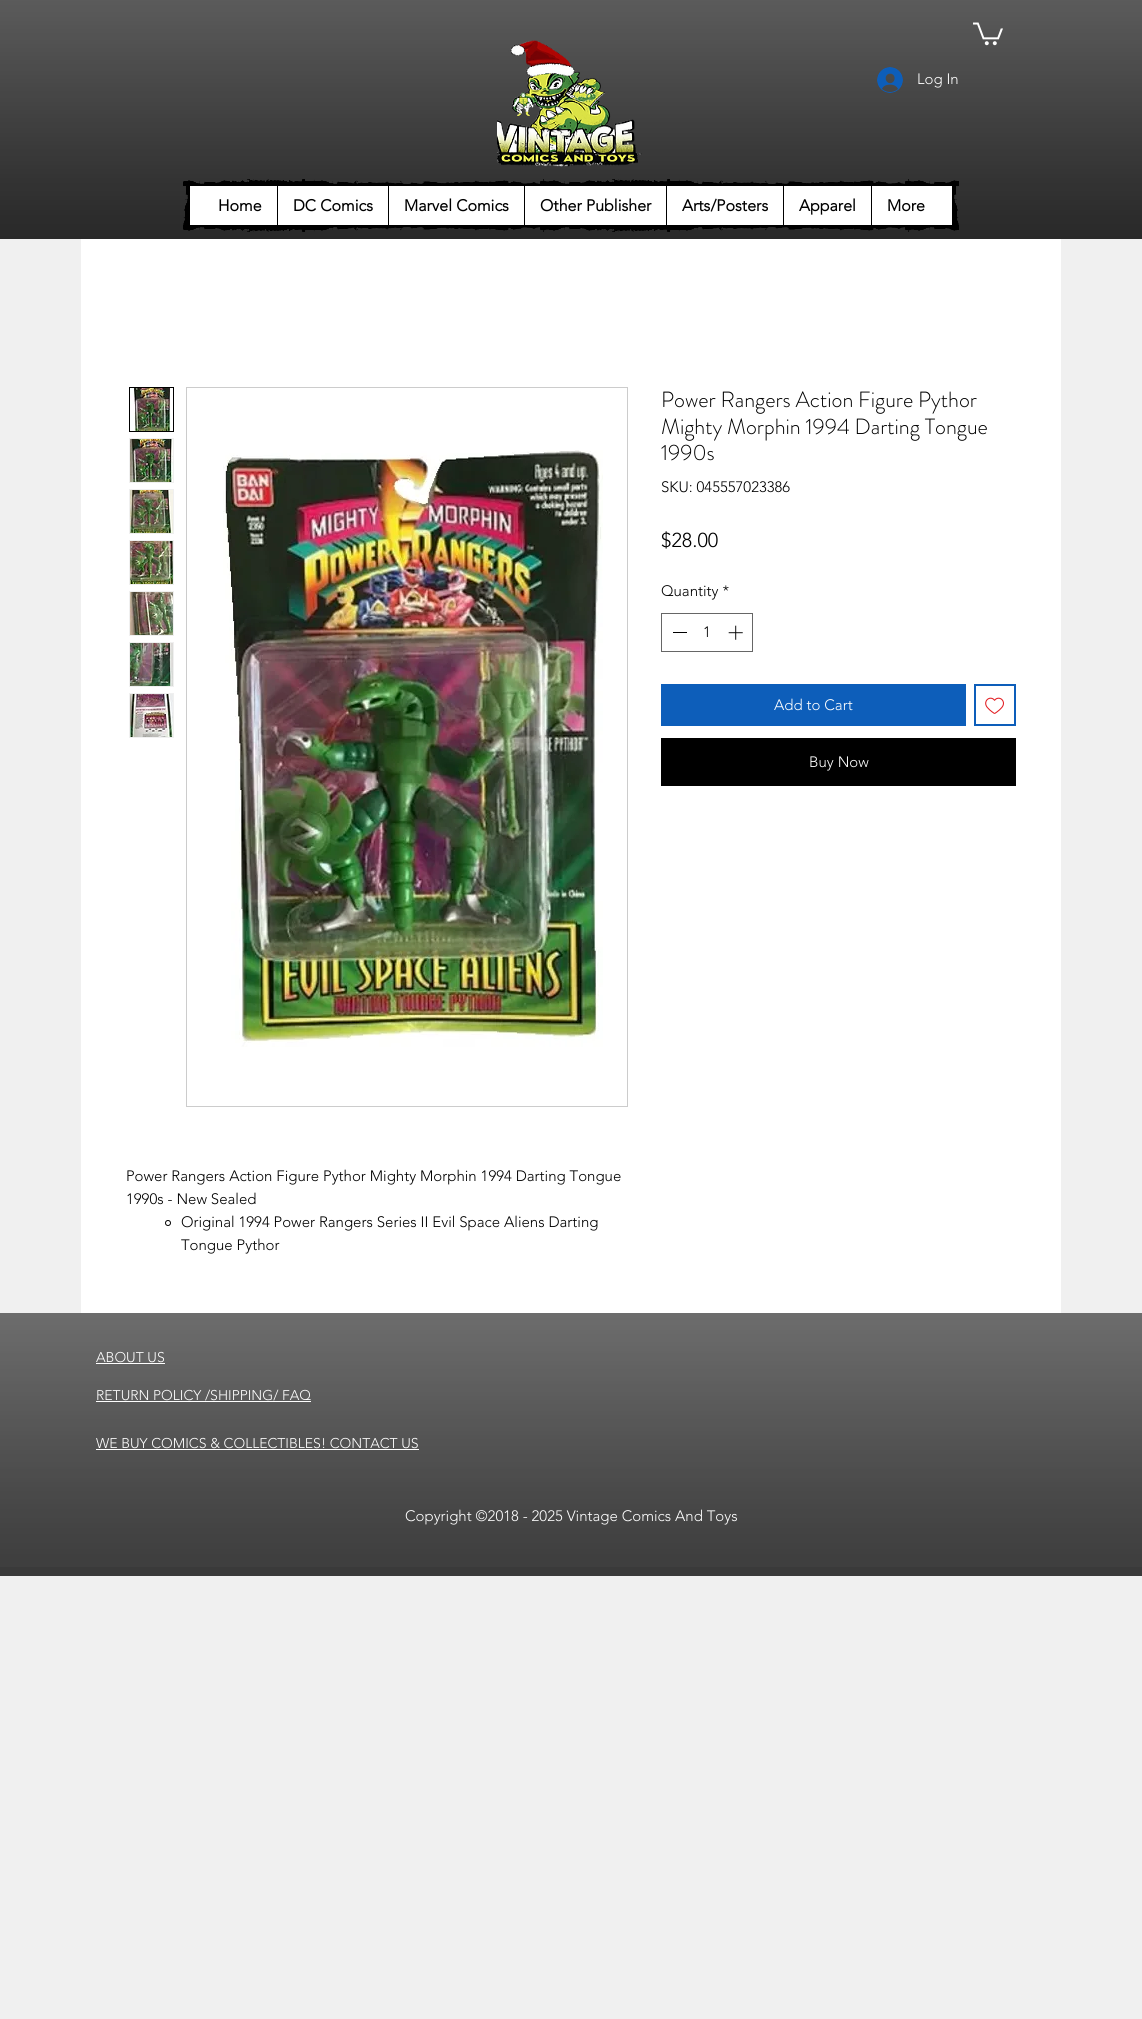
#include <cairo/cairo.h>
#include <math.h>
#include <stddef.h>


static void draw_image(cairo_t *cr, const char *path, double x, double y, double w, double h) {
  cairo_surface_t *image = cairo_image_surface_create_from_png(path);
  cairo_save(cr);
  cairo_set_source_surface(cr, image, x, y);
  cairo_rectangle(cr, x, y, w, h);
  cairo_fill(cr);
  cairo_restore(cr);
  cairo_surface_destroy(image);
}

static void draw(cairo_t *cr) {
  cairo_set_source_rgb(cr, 240 / 255.0, 240 / 255.0, 240 / 255.0);
  cairo_paint(cr);
  cairo_set_source_rgb(cr, 34 / 255.0, 34 / 255.0, 34 / 255.0);
  cairo_rectangle(cr, 0, 0, 1142, 239);
  cairo_fill(cr);
  draw_image(cr, "images/1.png", 0, 0, 1142, 239);
  draw_image(cr, "images/2.png", 973, 22, 30, 24);
  draw_image(cr, "images/3.png", 497, 40, 145, 127);
  draw_image(cr, "images/4.png", 877, 67, 26, 26);
  draw_image(cr, "images/5.png", 183, 179, 776, 7);
  draw_image(cr, "images/6.png", 183, 186, 7, 39);
  cairo_set_source_rgb(cr, 1, 1, 1);
  cairo_rectangle(cr, 190, 186, 762, 39);
  cairo_fill(cr);
  cairo_set_source_rgb(cr, 0, 0, 0);
  cairo_rectangle(cr, 277, 186, 1, 39);
  cairo_fill(cr);
  cairo_rectangle(cr, 388, 186, 1, 39);
  cairo_fill(cr);
  cairo_rectangle(cr, 524, 186, 1, 39);
  cairo_fill(cr);
  cairo_rectangle(cr, 666, 186, 1, 39);
  cairo_fill(cr);
  cairo_rectangle(cr, 783, 186, 1, 39);
  cairo_fill(cr);
  cairo_rectangle(cr, 871, 186, 1, 39);
  cairo_fill(cr);
  draw_image(cr, "images/7.png", 952, 186, 7, 39);
  draw_image(cr, "images/8.png", 183, 225, 776, 7);
  cairo_set_source_rgb(cr, 1, 1, 1);
  cairo_rectangle(cr, 81, 239, 980, 1074);
  cairo_fill(cr);
  cairo_rectangle(cr, 661.5, 613.5, 91, 38);
  cairo_set_source_rgb(cr, 102 / 255.0, 102 / 255.0, 102 / 255.0);
  cairo_set_line_width(cr, 1);
  cairo_stroke(cr);
  cairo_set_source_rgb(cr, 0, 0, 0);
  cairo_rectangle(cr, 673, 632, 14, 1);
  cairo_fill(cr);
  draw_image(cr, "images/9.png", 728, 625, 15, 15);
  cairo_set_source_rgb(cr, 13 / 255.0, 94 / 255.0, 186 / 255.0);
  cairo_rectangle(cr, 661, 684, 305, 42);
  cairo_fill(cr);
  cairo_rectangle(cr, 975, 685, 40, 40);
  cairo_set_line_width(cr, 2);
  cairo_stroke(cr);
  draw_image(cr, "images/10.png", 985, 697, 19, 17);
  cairo_set_source_rgb(cr, 0, 0, 0);
  cairo_rectangle(cr, 661, 738, 355, 48);
  cairo_fill(cr);
  cairo_rectangle(cr, 129.5, 387.5, 44, 44);
  cairo_set_line_width(cr, 1);
  cairo_stroke(cr);
  draw_image(cr, "images/11.png", 130, 388, 41, 43);
  cairo_rectangle(cr, 129.5, 438.5, 44, 44);
  cairo_set_source_rgb(cr, 240 / 255.0, 240 / 255.0, 240 / 255.0);
  cairo_stroke(cr);
  draw_image(cr, "images/12.png", 130, 439, 43, 43);
  cairo_rectangle(cr, 129.5, 489.5, 44, 44);
  cairo_stroke(cr);
  draw_image(cr, "images/13.png", 130, 490, 43, 43);
  cairo_rectangle(cr, 129.5, 540.5, 44, 44);
  cairo_stroke(cr);
  draw_image(cr, "images/14.png", 130, 541, 43, 43);
  cairo_rectangle(cr, 129.5, 591.5, 44, 44);
  cairo_stroke(cr);
  draw_image(cr, "images/15.png", 130, 592, 43, 43);
  cairo_rectangle(cr, 129.5, 642.5, 44, 44);
  cairo_stroke(cr);
  draw_image(cr, "images/16.png", 130, 643, 43, 43);
  cairo_rectangle(cr, 129.5, 693.5, 44, 44);
  cairo_stroke(cr);
  draw_image(cr, "images/17.png", 130, 694, 43, 43);
  cairo_rectangle(cr, 186.5, 387.5, 441, 719);
  cairo_set_source_rgb(cr, 204 / 255.0, 204 / 255.0, 204 / 255.0);
  cairo_stroke(cr);
  draw_image(cr, "images/18.png", 223, 450, 380, 597);
  cairo_arc(cr, 168, 1223, 2.5, 0, 2 * M_PI);
  cairo_set_source_rgb(cr, 0, 0, 0);
  cairo_stroke(cr);
  cairo_set_source_rgb(cr, 58 / 255.0, 58 / 255.0, 58 / 255.0);
  cairo_rectangle(cr, 0, 1313, 1142, 263);
  cairo_fill(cr);
  draw_image(cr, "images/19.png", 0, 1313, 1142, 254);
  cairo_set_source_rgb(cr, 1, 1, 1);
  cairo_rectangle(cr, 96, 1363, 69, 1);
  cairo_fill(cr);
  cairo_rectangle(cr, 96, 1401, 215, 1);
  cairo_fill(cr);
  cairo_rectangle(cr, 96, 1449, 323, 1);
  cairo_fill(cr);
  cairo_select_font_face(cr, "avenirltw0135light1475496 Light", CAIRO_FONT_SLANT_NORMAL, CAIRO_FONT_WEIGHT_NORMAL);
  cairo_set_font_size(cr, 15);
  cairo_move_to(cr, 917, 84);
  cairo_show_text(cr, "Log In");
  cairo_select_font_face(cr, "avenirltw0135light1475496", CAIRO_FONT_SLANT_NORMAL, CAIRO_FONT_WEIGHT_BOLD);
  cairo_set_font_size(cr, 16);
  cairo_set_source_rgb(cr, 0, 0, 0);
  cairo_move_to(cr, 218, 211);
  cairo_show_text(cr, "Home");
  cairo_move_to(cr, 293, 211);
  cairo_show_text(cr, "DC Comics");
  cairo_move_to(cr, 404, 211);
  cairo_show_text(cr, "Marvel Comics");
  cairo_move_to(cr, 540, 211);
  cairo_show_text(cr, "Other Publisher");
  cairo_move_to(cr, 682, 211);
  cairo_show_text(cr, "Arts/Posters");
  cairo_move_to(cr, 799, 211);
  cairo_show_text(cr, "Apparel");
  cairo_move_to(cr, 887, 211);
  cairo_show_text(cr, "More");
  cairo_select_font_face(cr, "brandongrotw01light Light", CAIRO_FONT_SLANT_NORMAL, CAIRO_FONT_WEIGHT_NORMAL);
  cairo_set_font_size(cr, 22);
  cairo_move_to(cr, 661, 407);
  cairo_show_text(cr, "Power Rangers Action Figure Pythor");
  cairo_move_to(cr, 661, 434);
  cairo_show_text(cr, "Mighty Morphin 1994 Darting Tongue");
  cairo_move_to(cr, 661, 460);
  cairo_show_text(cr, "1990s");
  cairo_select_font_face(cr, "avenirltw0135light1475496 Light", CAIRO_FONT_SLANT_NORMAL, CAIRO_FONT_WEIGHT_NORMAL);
  cairo_set_font_size(cr, 15);
  cairo_move_to(cr, 661, 492);
  cairo_show_text(cr, "SKU: 045557023386");
  cairo_set_font_size(cr, 20);
  cairo_move_to(cr, 661, 547);
  cairo_show_text(cr, "$28.00");
  cairo_set_font_size(cr, 15);
  cairo_move_to(cr, 661, 596);
  cairo_show_text(cr, "Quantity *");
  cairo_move_to(cr, 703, 637);
  cairo_show_text(cr, "1");
  cairo_set_source_rgb(cr, 1, 1, 1);
  cairo_move_to(cr, 774, 710);
  cairo_show_text(cr, "Add to Cart");
  cairo_move_to(cr, 809, 767);
  cairo_show_text(cr, "Buy Now");
  cairo_set_source_rgb(cr, 0, 0, 0);
  cairo_move_to(cr, 126, 1181);
  cairo_show_text(cr, "Power Rangers Action Figure Pythor Mighty Morphin 1994 Darting Tongue");
  cairo_move_to(cr, 126, 1204);
  cairo_show_text(cr, "1990s - New Sealed");
  cairo_move_to(cr, 181, 1227);
  cairo_show_text(cr, "Original 1994 Power Rangers Series II Evil Space Aliens Darting");
  cairo_move_to(cr, 181, 1250);
  cairo_show_text(cr, "Tongue Pythor");
  cairo_set_font_size(cr, 14);
  cairo_set_source_rgb(cr, 1, 1, 1);
  cairo_move_to(cr, 96, 1362);
  cairo_show_text(cr, "ABOUT US");
  cairo_move_to(cr, 96, 1400);
  cairo_show_text(cr, "RETURN POLICY /SHIPPING/ FAQ");
  cairo_move_to(cr, 96, 1448);
  cairo_show_text(cr, "WE BUY COMICS & COLLECTIBLES! CONTACT US");
  cairo_set_font_size(cr, 15);
  cairo_move_to(cr, 405, 1521);
  cairo_show_text(cr, "Copyright ©2018 - 2025 Vintage Comics And Toys");
}

int main(void) {
  cairo_surface_t *surface = cairo_image_surface_create(CAIRO_FORMAT_RGB24, 1142, 2019);
  cairo_t *cr = cairo_create(surface);
  cairo_font_options_t *options = cairo_font_options_create();
  cairo_font_options_set_hint_metrics(options, CAIRO_HINT_METRICS_OFF);
  cairo_font_options_set_hint_style(options, CAIRO_HINT_STYLE_NONE);
  cairo_set_font_options(cr, options);
  cairo_set_miter_limit(cr, 4);
  draw(cr);
  cairo_surface_write_to_png(surface, "out.png");
  cairo_font_options_destroy(options);
  cairo_destroy(cr);
  cairo_surface_destroy(surface);
  return 0;
}
